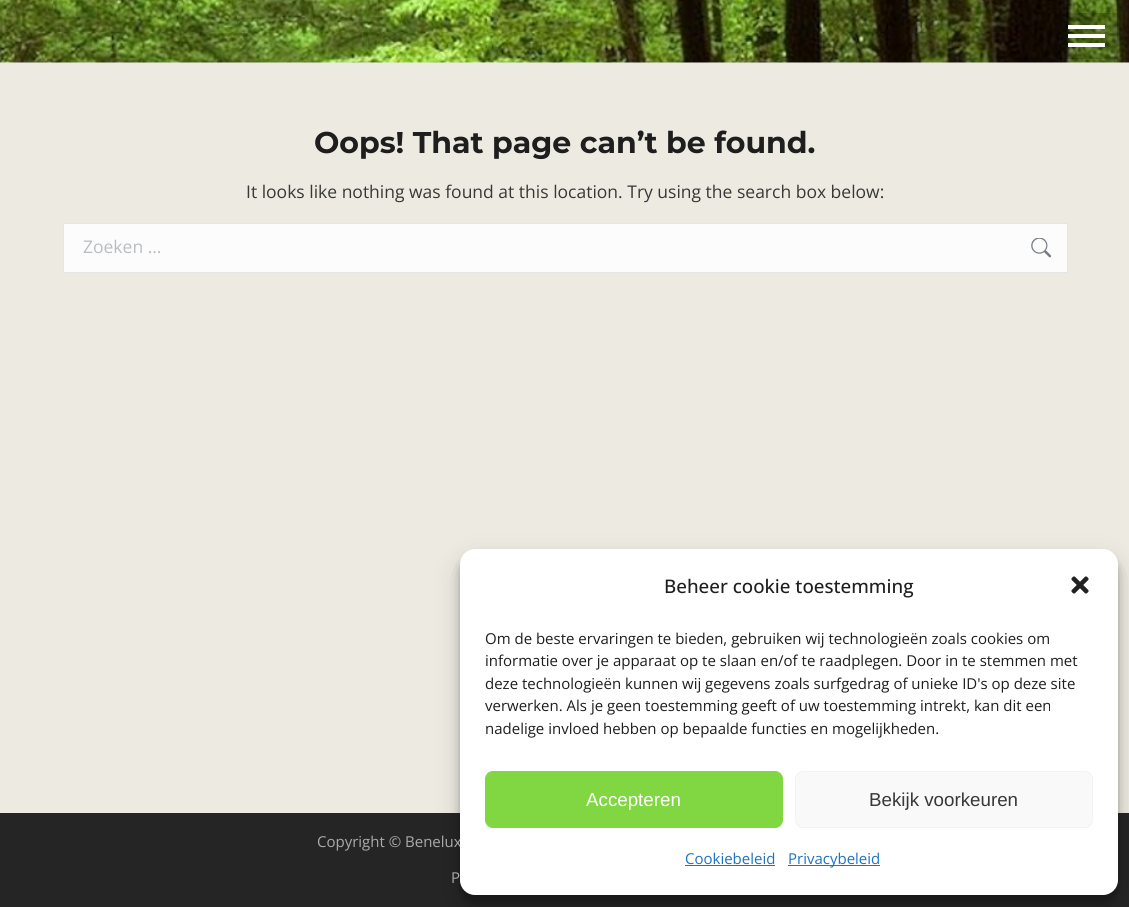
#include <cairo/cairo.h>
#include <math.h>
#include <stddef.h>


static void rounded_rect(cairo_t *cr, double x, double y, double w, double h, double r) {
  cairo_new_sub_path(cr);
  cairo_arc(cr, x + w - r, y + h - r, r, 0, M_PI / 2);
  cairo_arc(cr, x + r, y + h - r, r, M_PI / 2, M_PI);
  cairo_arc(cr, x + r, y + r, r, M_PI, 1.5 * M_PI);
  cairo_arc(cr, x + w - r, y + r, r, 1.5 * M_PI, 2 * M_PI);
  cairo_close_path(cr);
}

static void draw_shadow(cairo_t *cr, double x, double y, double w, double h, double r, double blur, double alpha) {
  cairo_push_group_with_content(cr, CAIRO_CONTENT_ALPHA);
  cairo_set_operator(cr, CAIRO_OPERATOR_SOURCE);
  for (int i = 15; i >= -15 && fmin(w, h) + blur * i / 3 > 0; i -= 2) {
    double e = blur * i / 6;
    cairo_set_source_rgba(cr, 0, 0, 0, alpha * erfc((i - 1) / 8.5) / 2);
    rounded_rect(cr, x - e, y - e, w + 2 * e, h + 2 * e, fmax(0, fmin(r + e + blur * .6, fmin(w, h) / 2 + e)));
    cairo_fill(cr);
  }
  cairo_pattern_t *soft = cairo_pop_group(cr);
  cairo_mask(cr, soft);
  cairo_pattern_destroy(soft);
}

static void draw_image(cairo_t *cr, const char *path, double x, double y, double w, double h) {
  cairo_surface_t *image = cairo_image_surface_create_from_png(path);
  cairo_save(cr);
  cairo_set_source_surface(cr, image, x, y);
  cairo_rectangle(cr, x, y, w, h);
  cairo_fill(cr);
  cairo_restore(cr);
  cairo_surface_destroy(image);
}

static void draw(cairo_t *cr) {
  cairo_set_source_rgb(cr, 236 / 255.0, 234 / 255.0, 225 / 255.0);
  cairo_paint(cr);
  cairo_set_source_rgb(cr, 239 / 255.0, 239 / 255.0, 234 / 255.0);
  cairo_rectangle(cr, 0, 62, 1129, 1);
  cairo_fill(cr);
  draw_image(cr, "images/1.png", 0, 0, 1129, 63);
  cairo_set_source_rgba(cr, 0, 0, 0, 0.2);
  cairo_rectangle(cr, 1055, 13, 63, 46);
  cairo_fill(cr);
  cairo_set_source_rgb(cr, 1, 1, 1);
  cairo_rectangle(cr, 1068, 25, 37, 4);
  cairo_fill(cr);
  cairo_rectangle(cr, 1068, 34, 37, 4);
  cairo_fill(cr);
  cairo_rectangle(cr, 1068, 43, 37, 4);
  cairo_fill(cr);
  cairo_set_source_rgb(cr, 252 / 255.0, 252 / 255.0, 252 / 255.0);
  cairo_rectangle(cr, 63.5, 223.5, 1004, 49);
  cairo_fill_preserve(cr);
  cairo_set_source_rgb(cr, 228 / 255.0, 229 / 255.0, 231 / 255.0);
  cairo_set_line_width(cr, 1);
  cairo_stroke(cr);
  draw_image(cr, "images/2.png", 1031, 238, 20, 20);
  cairo_set_source_rgb(cr, 37 / 255.0, 37 / 255.0, 37 / 255.0);
  cairo_rectangle(cr, 0, 813, 1129, 94);
  cairo_fill(cr);
  cairo_set_source_rgb(cr, 0, 0, 0);
  draw_shadow(cr, 460, 556, 658, 347, 15, 4, 0.23);
  draw_shadow(cr, 460, 561, 658, 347, 15, 12.5, 0.19);
  cairo_select_font_face(cr, "Montserrat", CAIRO_FONT_SLANT_NORMAL, CAIRO_FONT_WEIGHT_BOLD);
  cairo_set_font_size(cr, 30);
  cairo_set_source_rgb(cr, 30 / 255.0, 30 / 255.0, 30 / 255.0);
  cairo_move_to(cr, 314, 153);
  cairo_show_text(cr, "Oops! That page can’t be found.");
  cairo_select_font_face(cr, "Open Sans", CAIRO_FONT_SLANT_NORMAL, CAIRO_FONT_WEIGHT_NORMAL);
  cairo_set_font_size(cr, 17.5);
  cairo_set_source_rgb(cr, 56 / 255.0, 56 / 255.0, 56 / 255.0);
  cairo_move_to(cr, 246, 198);
  cairo_show_text(cr, "It looks like nothing was found at this location. Try using the search box below:");
  cairo_set_source_rgb(cr, 186 / 255.0, 189 / 255.0, 193 / 255.0);
  cairo_move_to(cr, 83, 253);
  cairo_show_text(cr, "Zoeken …");
  cairo_set_font_size(cr, 15);
  cairo_set_source_rgb(cr, 170 / 255.0, 170 / 255.0, 170 / 255.0);
  cairo_move_to(cr, 317, 847);
  cairo_show_text(cr, "Copyright © Benelux");
  cairo_move_to(cr, 451, 883);
  cairo_show_text(cr, "P");
  cairo_set_source_rgb(cr, 1, 1, 1);
  rounded_rect(cr, 460, 549, 658, 346, 15);
  cairo_fill(cr);
  cairo_select_font_face(cr, "Open Sans Medium", CAIRO_FONT_SLANT_NORMAL, CAIRO_FONT_WEIGHT_NORMAL);
  cairo_set_font_size(cr, 18.75);
  cairo_set_source_rgb(cr, 30 / 255.0, 30 / 255.0, 30 / 255.0);
  cairo_move_to(cr, 664, 593);
  cairo_show_text(cr, "Beheer cookie toestemming");
  draw_image(cr, "images/3.png", 1071, 576, 18, 18);
  cairo_select_font_face(cr, "Open Sans", CAIRO_FONT_SLANT_NORMAL, CAIRO_FONT_WEIGHT_NORMAL);
  cairo_set_font_size(cr, 15);
  cairo_move_to(cr, 485, 644);
  cairo_show_text(cr, "Om de beste ervaringen te bieden, gebruiken wij technologieën zoals cookies om");
  cairo_move_to(cr, 485, 666);
  cairo_show_text(cr, "informatie over je apparaat op te slaan en/of te raadplegen. Door in te stemmen met");
  cairo_move_to(cr, 485, 689);
  cairo_show_text(cr, "deze technologieën kunnen wij gegevens zoals surfgedrag of unieke ID's op deze site");
  cairo_move_to(cr, 485, 711);
  cairo_show_text(cr, "verwerken. Als je geen toestemming geeft of uw toestemming intrekt, kan dit een");
  cairo_move_to(cr, 485, 734);
  cairo_show_text(cr, "nadelige invloed hebben op bepaalde functies en mogelijkheden.");
  cairo_set_source_rgb(cr, 129 / 255.0, 215 / 255.0, 66 / 255.0);
  rounded_rect(cr, 485.5, 771.5, 297, 56, 7.5);
  cairo_fill_preserve(cr);
  cairo_stroke(cr);
  cairo_select_font_face(cr, "Liberation Sans", CAIRO_FONT_SLANT_NORMAL, CAIRO_FONT_WEIGHT_NORMAL);
  cairo_set_font_size(cr, 18.75);
  cairo_set_source_rgb(cr, 1, 1, 1);
  cairo_move_to(cr, 586, 806);
  cairo_show_text(cr, "Accepteren");
  cairo_set_source_rgb(cr, 249 / 255.0, 249 / 255.0, 249 / 255.0);
  rounded_rect(cr, 795.5, 771.5, 297, 56, 7.5);
  cairo_fill_preserve(cr);
  cairo_set_source_rgb(cr, 242 / 255.0, 242 / 255.0, 242 / 255.0);
  cairo_stroke(cr);
  cairo_set_source_rgb(cr, 56 / 255.0, 56 / 255.0, 56 / 255.0);
  cairo_move_to(cr, 869, 806);
  cairo_show_text(cr, "Bekijk voorkeuren");
  cairo_select_font_face(cr, "Open Sans", CAIRO_FONT_SLANT_NORMAL, CAIRO_FONT_WEIGHT_NORMAL);
  cairo_set_font_size(cr, 15);
  cairo_set_source_rgb(cr, 30 / 255.0, 115 / 255.0, 190 / 255.0);
  cairo_move_to(cr, 685, 864);
  cairo_show_text(cr, "Cookiebeleid");
  cairo_rectangle(cr, 685, 865, 90, 1);
  cairo_fill(cr);
  cairo_rectangle(cr, 788, 865, 92, 1);
  cairo_fill(cr);
  cairo_move_to(cr, 788, 864);
  cairo_show_text(cr, "Privacybeleid");
}

int main(void) {
  cairo_surface_t *surface = cairo_image_surface_create(CAIRO_FORMAT_RGB24, 1129, 907);
  cairo_t *cr = cairo_create(surface);
  cairo_font_options_t *options = cairo_font_options_create();
  cairo_font_options_set_hint_metrics(options, CAIRO_HINT_METRICS_OFF);
  cairo_font_options_set_hint_style(options, CAIRO_HINT_STYLE_NONE);
  cairo_set_font_options(cr, options);
  cairo_set_miter_limit(cr, 4);
  draw(cr);
  cairo_surface_write_to_png(surface, "out.png");
  cairo_font_options_destroy(options);
  cairo_destroy(cr);
  cairo_surface_destroy(surface);
  return 0;
}
